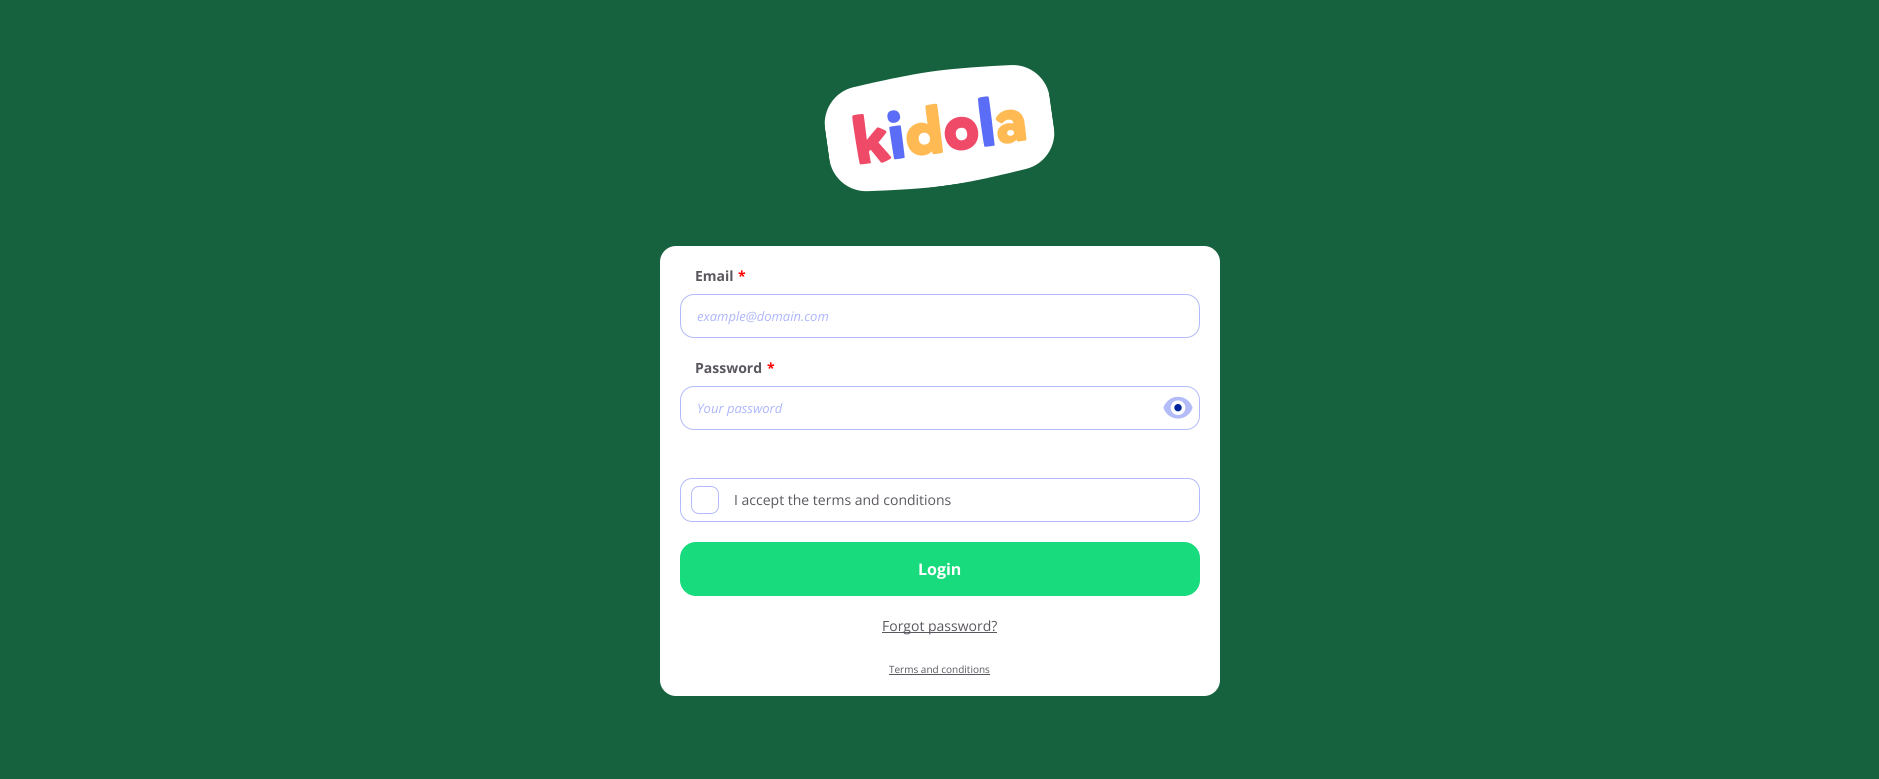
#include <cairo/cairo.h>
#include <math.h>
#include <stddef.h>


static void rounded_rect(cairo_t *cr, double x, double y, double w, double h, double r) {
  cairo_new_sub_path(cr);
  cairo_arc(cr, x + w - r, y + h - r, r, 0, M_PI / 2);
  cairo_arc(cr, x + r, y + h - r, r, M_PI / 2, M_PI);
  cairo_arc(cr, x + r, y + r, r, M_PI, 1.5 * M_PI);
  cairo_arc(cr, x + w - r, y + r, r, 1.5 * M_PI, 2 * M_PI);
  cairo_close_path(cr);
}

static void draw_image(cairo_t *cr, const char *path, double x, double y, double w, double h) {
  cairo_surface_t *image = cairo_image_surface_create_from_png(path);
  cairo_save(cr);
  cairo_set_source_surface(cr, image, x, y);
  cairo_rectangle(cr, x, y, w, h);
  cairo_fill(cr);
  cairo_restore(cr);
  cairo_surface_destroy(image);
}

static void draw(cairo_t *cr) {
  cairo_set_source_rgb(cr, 22 / 255.0, 98 / 255.0, 62 / 255.0);
  cairo_paint(cr);
  draw_image(cr, "images/1.png", 824, 65, 231, 127);
  cairo_set_source_rgb(cr, 1, 1, 1);
  rounded_rect(cr, 660, 246, 560, 450, 16);
  cairo_fill(cr);
  rounded_rect(cr, 680.5, 294.5, 519, 43, 13.5);
  cairo_set_source_rgb(cr, 179 / 255.0, 187 / 255.0, 249 / 255.0);
  cairo_set_line_width(cr, 1);
  cairo_stroke(cr);
  rounded_rect(cr, 680.5, 386.5, 519, 43, 13.5);
  cairo_stroke(cr);
  draw_image(cr, "images/2.png", 1163, 396, 30, 23);
  draw_image(cr, "images/3.png", 1174, 404, 8, 8);
  rounded_rect(cr, 680.5, 478.5, 519, 43, 11.5);
  cairo_stroke(cr);
  rounded_rect(cr, 691.5, 486.5, 27, 27, 7.5);
  cairo_stroke(cr);
  cairo_set_source_rgb(cr, 24 / 255.0, 219 / 255.0, 125 / 255.0);
  rounded_rect(cr, 680, 542, 520, 54, 16);
  cairo_fill(cr);
  cairo_set_source_rgb(cr, 91 / 255.0, 87 / 255.0, 95 / 255.0);
  cairo_rectangle(cr, 882, 632, 115, 1);
  cairo_fill(cr);
  cairo_rectangle(cr, 889, 674, 101, 1);
  cairo_fill(cr);
  cairo_select_font_face(cr, "Open Sans", CAIRO_FONT_SLANT_NORMAL, CAIRO_FONT_WEIGHT_BOLD);
  cairo_set_font_size(cr, 14);
  cairo_move_to(cr, 695, 281);
  cairo_show_text(cr, "Email");
  cairo_set_source_rgb(cr, 1, 0, 0);
  cairo_move_to(cr, 738, 281);
  cairo_show_text(cr, "*");
  cairo_select_font_face(cr, "Open Sans", CAIRO_FONT_SLANT_ITALIC, CAIRO_FONT_WEIGHT_NORMAL);
  cairo_set_font_size(cr, 13);
  cairo_set_source_rgb(cr, 173 / 255.0, 182 / 255.0, 251 / 255.0);
  cairo_move_to(cr, 697, 321);
  cairo_show_text(cr, "example@domain.com");
  cairo_select_font_face(cr, "Open Sans", CAIRO_FONT_SLANT_NORMAL, CAIRO_FONT_WEIGHT_BOLD);
  cairo_set_font_size(cr, 14);
  cairo_set_source_rgb(cr, 91 / 255.0, 87 / 255.0, 95 / 255.0);
  cairo_move_to(cr, 695, 373);
  cairo_show_text(cr, "Password");
  cairo_set_source_rgb(cr, 1, 0, 0);
  cairo_move_to(cr, 767, 373);
  cairo_show_text(cr, "*");
  cairo_select_font_face(cr, "Open Sans", CAIRO_FONT_SLANT_ITALIC, CAIRO_FONT_WEIGHT_NORMAL);
  cairo_set_font_size(cr, 13);
  cairo_set_source_rgb(cr, 173 / 255.0, 182 / 255.0, 251 / 255.0);
  cairo_move_to(cr, 697, 413);
  cairo_show_text(cr, "Your password");
  cairo_select_font_face(cr, "Open Sans", CAIRO_FONT_SLANT_NORMAL, CAIRO_FONT_WEIGHT_NORMAL);
  cairo_set_font_size(cr, 14);
  cairo_set_source_rgb(cr, 91 / 255.0, 87 / 255.0, 95 / 255.0);
  cairo_move_to(cr, 734, 505);
  cairo_show_text(cr, "I accept the terms and conditions");
  cairo_select_font_face(cr, "Open Sans", CAIRO_FONT_SLANT_NORMAL, CAIRO_FONT_WEIGHT_BOLD);
  cairo_set_font_size(cr, 16);
  cairo_set_source_rgb(cr, 1, 1, 1);
  cairo_move_to(cr, 918, 575);
  cairo_show_text(cr, "Login");
  cairo_select_font_face(cr, "Open Sans", CAIRO_FONT_SLANT_NORMAL, CAIRO_FONT_WEIGHT_NORMAL);
  cairo_set_font_size(cr, 14);
  cairo_set_source_rgb(cr, 91 / 255.0, 87 / 255.0, 95 / 255.0);
  cairo_move_to(cr, 882, 631);
  cairo_show_text(cr, "Forgot password?");
  cairo_set_font_size(cr, 10);
  cairo_move_to(cr, 889, 673);
  cairo_show_text(cr, "Terms and conditions");
}

int main(void) {
  cairo_surface_t *surface = cairo_image_surface_create(CAIRO_FORMAT_RGB24, 1879, 779);
  cairo_t *cr = cairo_create(surface);
  cairo_font_options_t *options = cairo_font_options_create();
  cairo_font_options_set_hint_metrics(options, CAIRO_HINT_METRICS_OFF);
  cairo_font_options_set_hint_style(options, CAIRO_HINT_STYLE_NONE);
  cairo_set_font_options(cr, options);
  cairo_set_miter_limit(cr, 4);
  draw(cr);
  cairo_surface_write_to_png(surface, "out.png");
  cairo_font_options_destroy(options);
  cairo_destroy(cr);
  cairo_surface_destroy(surface);
  return 0;
}
